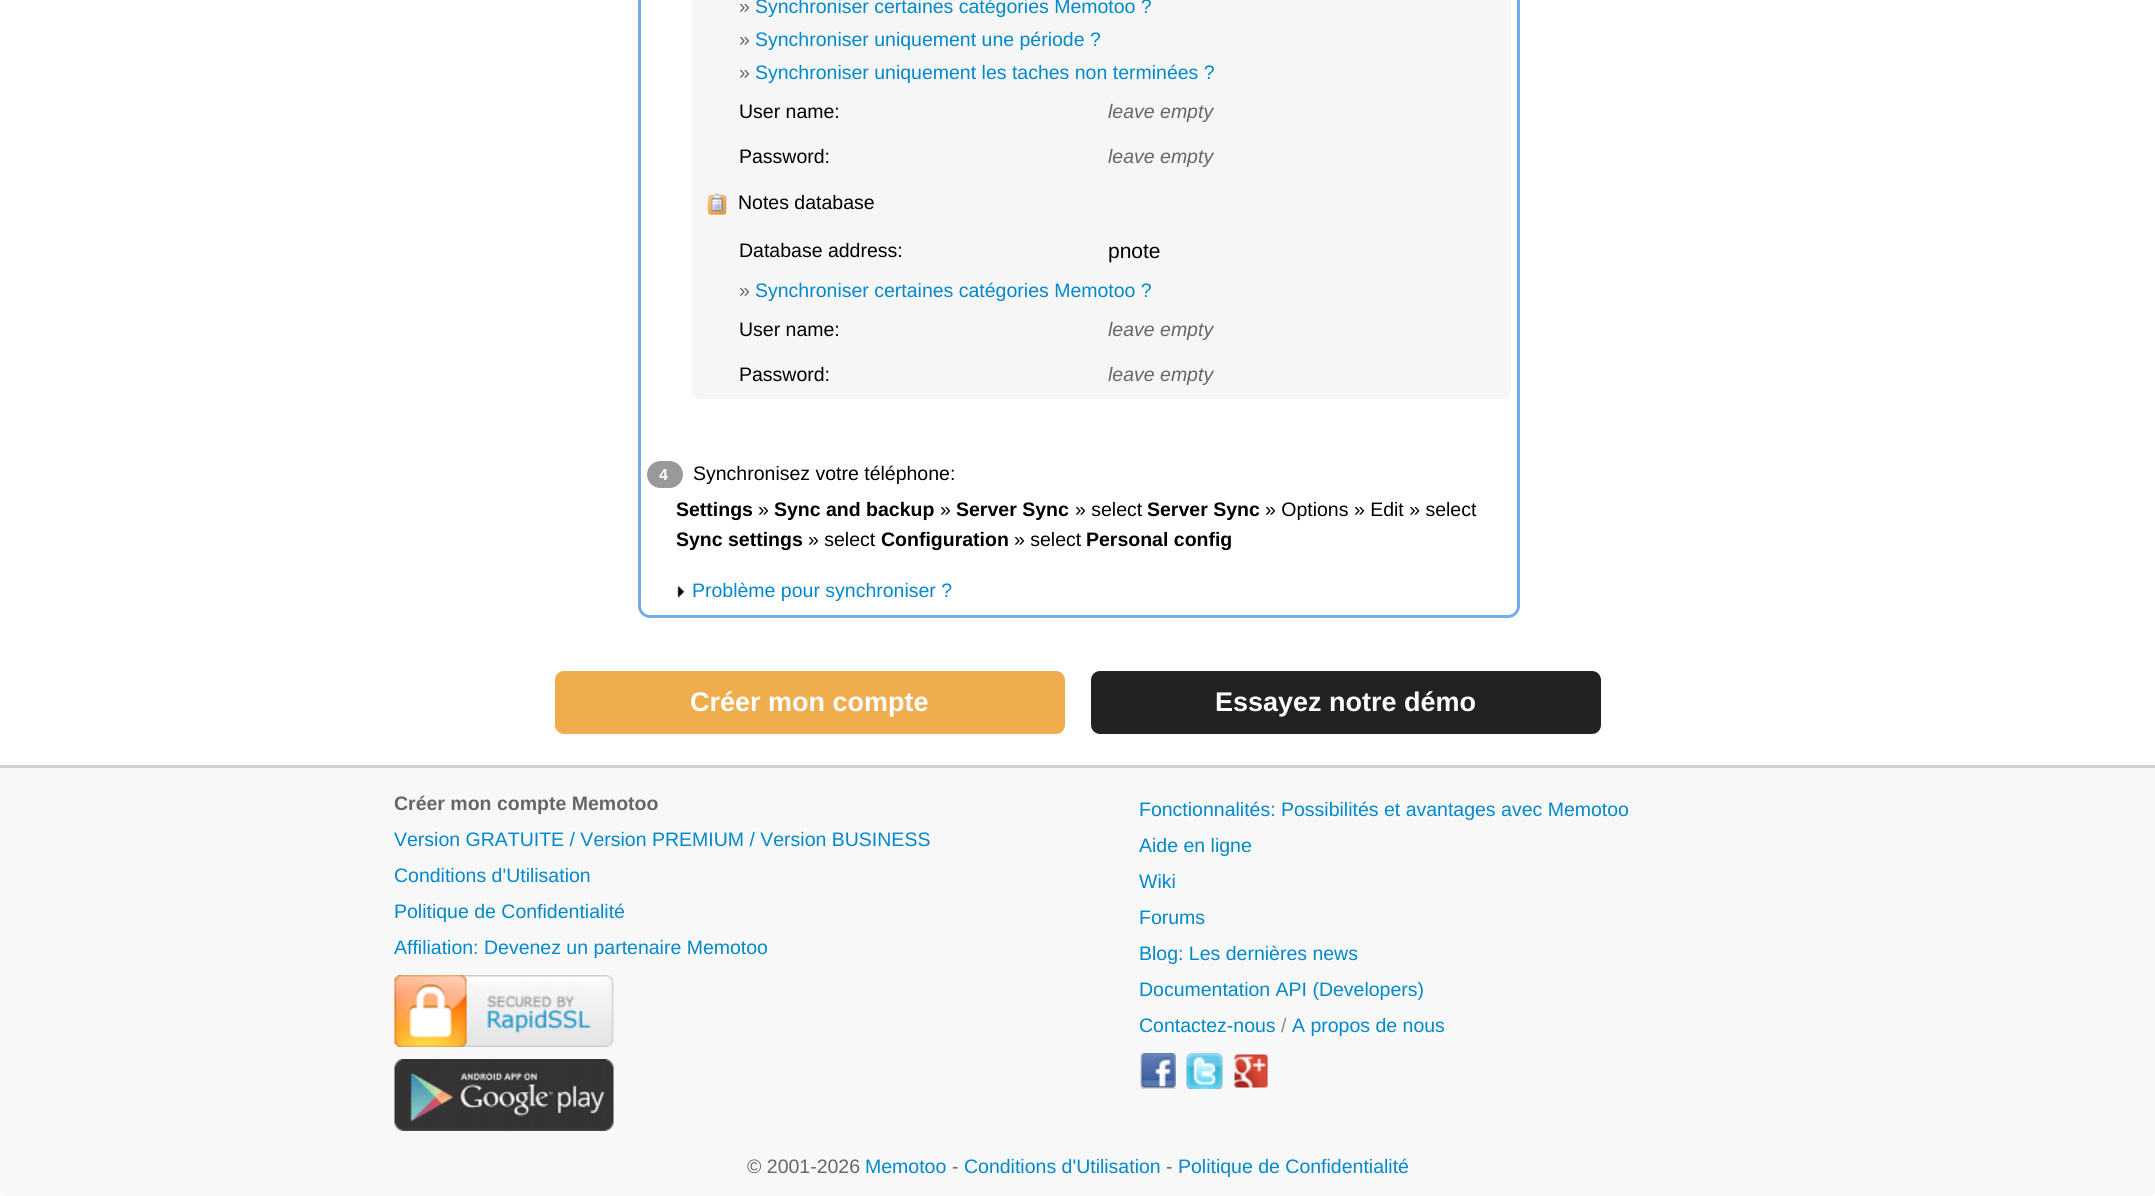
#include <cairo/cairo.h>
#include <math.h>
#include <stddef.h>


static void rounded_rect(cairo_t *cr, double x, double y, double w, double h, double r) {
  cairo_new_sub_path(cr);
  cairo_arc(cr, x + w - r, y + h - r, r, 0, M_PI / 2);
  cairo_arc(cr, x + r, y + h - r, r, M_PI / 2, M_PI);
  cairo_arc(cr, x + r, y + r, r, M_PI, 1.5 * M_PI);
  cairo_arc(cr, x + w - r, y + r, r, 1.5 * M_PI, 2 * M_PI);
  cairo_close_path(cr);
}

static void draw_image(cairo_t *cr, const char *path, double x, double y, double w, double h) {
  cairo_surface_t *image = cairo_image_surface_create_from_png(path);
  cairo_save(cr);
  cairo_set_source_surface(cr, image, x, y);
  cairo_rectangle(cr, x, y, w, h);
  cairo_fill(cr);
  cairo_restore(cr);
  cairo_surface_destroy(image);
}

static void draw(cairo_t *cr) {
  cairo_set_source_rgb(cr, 1, 1, 1);
  cairo_paint(cr);
  rounded_rect(cr, 639.5, -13.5, 879, 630, 10.5);
  cairo_set_source_rgb(cr, 115 / 255.0, 172 / 255.0, 230 / 255.0);
  cairo_set_line_width(cr, 3);
  cairo_stroke(cr);
  cairo_set_source_rgb(cr, 246 / 255.0, 246 / 255.0, 246 / 255.0);
  rounded_rect(cr, 692, -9, 819, 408, 9);
  cairo_fill(cr);
  draw_image(cr, "images/1.png", 707, 193, 20, 22);
  cairo_set_source_rgb(cr, 153 / 255.0, 153 / 255.0, 153 / 255.0);
  rounded_rect(cr, 647, 461, 36, 27, 13.5);
  cairo_fill(cr);
  draw_image(cr, "images/2.png", 677, 586, 8, 12);
  cairo_set_source_rgb(cr, 240 / 255.0, 173 / 255.0, 78 / 255.0);
  rounded_rect(cr, 556, 672, 508, 61, 8);
  cairo_fill_preserve(cr);
  cairo_set_line_width(cr, 2);
  cairo_stroke(cr);
  cairo_set_source_rgb(cr, 34 / 255.0, 34 / 255.0, 34 / 255.0);
  rounded_rect(cr, 1092, 672, 508, 61, 8);
  cairo_fill_preserve(cr);
  cairo_stroke(cr);
  cairo_set_source_rgb(cr, 248 / 255.0, 248 / 255.0, 248 / 255.0);
  cairo_new_path(cr);
  cairo_move_to(cr, 0, 765);
  cairo_line_to(cr, 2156, 765);
  cairo_line_to(cr, 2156, 1189);
  cairo_curve_to(cr, 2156, 1193.5, 2152.5, 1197, 2148, 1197);
  cairo_line_to(cr, 8, 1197);
  cairo_curve_to(cr, 3.5, 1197, 0, 1193.5, 0, 1189);
  cairo_close_path(cr);
  cairo_fill(cr);
  cairo_set_source_rgb(cr, 209 / 255.0, 209 / 255.0, 209 / 255.0);
  cairo_rectangle(cr, 0, 765, 2155, 3);
  cairo_fill(cr);
  draw_image(cr, "images/3.png", 394, 975, 220, 72);
  draw_image(cr, "images/4.png", 394, 1059, 220, 72);
  draw_image(cr, "images/5.png", 1140, 1053, 36, 36);
  draw_image(cr, "images/6.png", 1186, 1053, 37, 36);
  draw_image(cr, "images/7.png", 1234, 1054, 34, 34);
  cairo_select_font_face(cr, "Liberation Sans", CAIRO_FONT_SLANT_NORMAL, CAIRO_FONT_WEIGHT_NORMAL);
  cairo_set_font_size(cr, 19.5);
  cairo_set_source_rgb(cr, 102 / 255.0, 102 / 255.0, 102 / 255.0);
  cairo_move_to(cr, 739, 13);
  cairo_show_text(cr, "»");
  cairo_set_source_rgb(cr, 0, 136 / 255.0, 204 / 255.0);
  cairo_move_to(cr, 755, 13);
  cairo_show_text(cr, "Synchroniser certaines catégories Memotoo ?");
  cairo_set_source_rgb(cr, 102 / 255.0, 102 / 255.0, 102 / 255.0);
  cairo_move_to(cr, 739, 46);
  cairo_show_text(cr, "»");
  cairo_set_source_rgb(cr, 0, 136 / 255.0, 204 / 255.0);
  cairo_move_to(cr, 755, 46);
  cairo_show_text(cr, "Synchroniser uniquement une période ?");
  cairo_set_source_rgb(cr, 102 / 255.0, 102 / 255.0, 102 / 255.0);
  cairo_move_to(cr, 739, 79);
  cairo_show_text(cr, "»");
  cairo_set_source_rgb(cr, 0, 136 / 255.0, 204 / 255.0);
  cairo_move_to(cr, 755, 79);
  cairo_show_text(cr, "Synchroniser uniquement les taches non terminées ?");
  cairo_set_source_rgb(cr, 0, 0, 0);
  cairo_move_to(cr, 739, 118);
  cairo_show_text(cr, "User name:");
  cairo_select_font_face(cr, "Liberation Sans", CAIRO_FONT_SLANT_ITALIC, CAIRO_FONT_WEIGHT_NORMAL);
  cairo_set_source_rgb(cr, 102 / 255.0, 102 / 255.0, 102 / 255.0);
  cairo_move_to(cr, 1108, 118);
  cairo_show_text(cr, "leave empty");
  cairo_select_font_face(cr, "Liberation Sans", CAIRO_FONT_SLANT_NORMAL, CAIRO_FONT_WEIGHT_NORMAL);
  cairo_set_source_rgb(cr, 0, 0, 0);
  cairo_move_to(cr, 739, 163);
  cairo_show_text(cr, "Password:");
  cairo_select_font_face(cr, "Liberation Sans", CAIRO_FONT_SLANT_ITALIC, CAIRO_FONT_WEIGHT_NORMAL);
  cairo_set_source_rgb(cr, 102 / 255.0, 102 / 255.0, 102 / 255.0);
  cairo_move_to(cr, 1108, 163);
  cairo_show_text(cr, "leave empty");
  cairo_select_font_face(cr, "Liberation Sans", CAIRO_FONT_SLANT_NORMAL, CAIRO_FONT_WEIGHT_NORMAL);
  cairo_set_source_rgb(cr, 0, 0, 0);
  cairo_move_to(cr, 738, 209);
  cairo_show_text(cr, "Notes database");
  cairo_move_to(cr, 739, 257);
  cairo_show_text(cr, "Database address:");
  cairo_set_font_size(cr, 21);
  cairo_move_to(cr, 1108, 258);
  cairo_show_text(cr, "pnote");
  cairo_set_font_size(cr, 19.5);
  cairo_set_source_rgb(cr, 102 / 255.0, 102 / 255.0, 102 / 255.0);
  cairo_move_to(cr, 739, 297);
  cairo_show_text(cr, "»");
  cairo_set_source_rgb(cr, 0, 136 / 255.0, 204 / 255.0);
  cairo_move_to(cr, 755, 297);
  cairo_show_text(cr, "Synchroniser certaines catégories Memotoo ?");
  cairo_set_source_rgb(cr, 0, 0, 0);
  cairo_move_to(cr, 739, 336);
  cairo_show_text(cr, "User name:");
  cairo_select_font_face(cr, "Liberation Sans", CAIRO_FONT_SLANT_ITALIC, CAIRO_FONT_WEIGHT_NORMAL);
  cairo_set_source_rgb(cr, 102 / 255.0, 102 / 255.0, 102 / 255.0);
  cairo_move_to(cr, 1108, 336);
  cairo_show_text(cr, "leave empty");
  cairo_select_font_face(cr, "Liberation Sans", CAIRO_FONT_SLANT_NORMAL, CAIRO_FONT_WEIGHT_NORMAL);
  cairo_set_source_rgb(cr, 0, 0, 0);
  cairo_move_to(cr, 739, 381);
  cairo_show_text(cr, "Password:");
  cairo_select_font_face(cr, "Liberation Sans", CAIRO_FONT_SLANT_ITALIC, CAIRO_FONT_WEIGHT_NORMAL);
  cairo_set_source_rgb(cr, 102 / 255.0, 102 / 255.0, 102 / 255.0);
  cairo_move_to(cr, 1108, 381);
  cairo_show_text(cr, "leave empty");
  cairo_select_font_face(cr, "Liberation Sans", CAIRO_FONT_SLANT_NORMAL, CAIRO_FONT_WEIGHT_BOLD);
  cairo_set_font_size(cr, 16);
  cairo_set_source_rgb(cr, 1, 1, 1);
  cairo_move_to(cr, 659, 480);
  cairo_show_text(cr, "4");
  cairo_select_font_face(cr, "Liberation Sans", CAIRO_FONT_SLANT_NORMAL, CAIRO_FONT_WEIGHT_NORMAL);
  cairo_set_font_size(cr, 19.5);
  cairo_set_source_rgb(cr, 0, 0, 0);
  cairo_move_to(cr, 693, 480);
  cairo_show_text(cr, "Synchronisez votre téléphone:");
  cairo_select_font_face(cr, "Liberation Sans", CAIRO_FONT_SLANT_NORMAL, CAIRO_FONT_WEIGHT_BOLD);
  cairo_move_to(cr, 676, 516);
  cairo_show_text(cr, "Settings");
  cairo_select_font_face(cr, "Liberation Sans", CAIRO_FONT_SLANT_NORMAL, CAIRO_FONT_WEIGHT_NORMAL);
  cairo_move_to(cr, 758, 516);
  cairo_show_text(cr, "»");
  cairo_select_font_face(cr, "Liberation Sans", CAIRO_FONT_SLANT_NORMAL, CAIRO_FONT_WEIGHT_BOLD);
  cairo_move_to(cr, 774, 516);
  cairo_show_text(cr, "Sync and backup");
  cairo_select_font_face(cr, "Liberation Sans", CAIRO_FONT_SLANT_NORMAL, CAIRO_FONT_WEIGHT_NORMAL);
  cairo_move_to(cr, 940, 516);
  cairo_show_text(cr, "»");
  cairo_select_font_face(cr, "Liberation Sans", CAIRO_FONT_SLANT_NORMAL, CAIRO_FONT_WEIGHT_BOLD);
  cairo_move_to(cr, 956, 516);
  cairo_show_text(cr, "Server Sync");
  cairo_select_font_face(cr, "Liberation Sans", CAIRO_FONT_SLANT_NORMAL, CAIRO_FONT_WEIGHT_NORMAL);
  cairo_move_to(cr, 1075, 516);
  cairo_show_text(cr, "» select");
  cairo_select_font_face(cr, "Liberation Sans", CAIRO_FONT_SLANT_NORMAL, CAIRO_FONT_WEIGHT_BOLD);
  cairo_move_to(cr, 1147, 516);
  cairo_show_text(cr, "Server Sync");
  cairo_select_font_face(cr, "Liberation Sans", CAIRO_FONT_SLANT_NORMAL, CAIRO_FONT_WEIGHT_NORMAL);
  cairo_move_to(cr, 1265, 516);
  cairo_show_text(cr, "» Options » Edit » select");
  cairo_select_font_face(cr, "Liberation Sans", CAIRO_FONT_SLANT_NORMAL, CAIRO_FONT_WEIGHT_BOLD);
  cairo_move_to(cr, 676, 546);
  cairo_show_text(cr, "Sync settings");
  cairo_select_font_face(cr, "Liberation Sans", CAIRO_FONT_SLANT_NORMAL, CAIRO_FONT_WEIGHT_NORMAL);
  cairo_move_to(cr, 808, 546);
  cairo_show_text(cr, "» select");
  cairo_select_font_face(cr, "Liberation Sans", CAIRO_FONT_SLANT_NORMAL, CAIRO_FONT_WEIGHT_BOLD);
  cairo_move_to(cr, 881, 546);
  cairo_show_text(cr, "Configuration");
  cairo_select_font_face(cr, "Liberation Sans", CAIRO_FONT_SLANT_NORMAL, CAIRO_FONT_WEIGHT_NORMAL);
  cairo_move_to(cr, 1014, 546);
  cairo_show_text(cr, "» select");
  cairo_select_font_face(cr, "Liberation Sans", CAIRO_FONT_SLANT_NORMAL, CAIRO_FONT_WEIGHT_BOLD);
  cairo_move_to(cr, 1086, 546);
  cairo_show_text(cr, "Personal config");
  cairo_select_font_face(cr, "Liberation Sans", CAIRO_FONT_SLANT_NORMAL, CAIRO_FONT_WEIGHT_NORMAL);
  cairo_set_source_rgb(cr, 0, 136 / 255.0, 204 / 255.0);
  cairo_move_to(cr, 692, 597);
  cairo_show_text(cr, "Problème pour synchroniser ?");
  cairo_select_font_face(cr, "Liberation Sans", CAIRO_FONT_SLANT_NORMAL, CAIRO_FONT_WEIGHT_BOLD);
  cairo_set_font_size(cr, 27);
  cairo_set_source_rgb(cr, 1, 1, 1);
  cairo_move_to(cr, 690, 711);
  cairo_show_text(cr, "Créer mon compte");
  cairo_move_to(cr, 1215, 711);
  cairo_show_text(cr, "Essayez notre démo");
  cairo_set_font_size(cr, 19.5);
  cairo_set_source_rgb(cr, 102 / 255.0, 102 / 255.0, 102 / 255.0);
  cairo_move_to(cr, 394, 810);
  cairo_show_text(cr, "Créer mon compte Memotoo");
  cairo_select_font_face(cr, "Liberation Sans", CAIRO_FONT_SLANT_NORMAL, CAIRO_FONT_WEIGHT_NORMAL);
  cairo_set_source_rgb(cr, 0, 136 / 255.0, 204 / 255.0);
  cairo_move_to(cr, 394, 846);
  cairo_show_text(cr, "Version GRATUITE / Version PREMIUM / Version BUSINESS");
  cairo_move_to(cr, 394, 882);
  cairo_show_text(cr, "Conditions d'Utilisation");
  cairo_move_to(cr, 394, 918);
  cairo_show_text(cr, "Politique de Confidentialité");
  cairo_move_to(cr, 394, 954);
  cairo_show_text(cr, "Affiliation: Devenez un partenaire Memotoo");
  cairo_move_to(cr, 1139, 816);
  cairo_show_text(cr, "Fonctionnalités: Possibilités et avantages avec Memotoo");
  cairo_move_to(cr, 1139, 852);
  cairo_show_text(cr, "Aide en ligne");
  cairo_move_to(cr, 1139, 888);
  cairo_show_text(cr, "Wiki");
  cairo_move_to(cr, 1139, 924);
  cairo_show_text(cr, "Forums");
  cairo_move_to(cr, 1139, 960);
  cairo_show_text(cr, "Blog: Les dernières news");
  cairo_move_to(cr, 1139, 996);
  cairo_show_text(cr, "Documentation API (Developers)");
  cairo_move_to(cr, 1139, 1032);
  cairo_show_text(cr, "Contactez-nous");
  cairo_set_source_rgb(cr, 136 / 255.0, 136 / 255.0, 136 / 255.0);
  cairo_move_to(cr, 1281, 1032);
  cairo_show_text(cr, "/");
  cairo_set_source_rgb(cr, 0, 136 / 255.0, 204 / 255.0);
  cairo_move_to(cr, 1292, 1032);
  cairo_show_text(cr, "A propos de nous");
  cairo_set_source_rgb(cr, 102 / 255.0, 102 / 255.0, 102 / 255.0);
  cairo_move_to(cr, 747, 1173);
  cairo_show_text(cr, "© 2001-2026");
  cairo_set_source_rgb(cr, 0, 136 / 255.0, 204 / 255.0);
  cairo_move_to(cr, 865, 1173);
  cairo_show_text(cr, "Memotoo");
  cairo_set_source_rgb(cr, 102 / 255.0, 102 / 255.0, 102 / 255.0);
  cairo_move_to(cr, 952, 1173);
  cairo_show_text(cr, "-");
  cairo_set_source_rgb(cr, 0, 136 / 255.0, 204 / 255.0);
  cairo_move_to(cr, 964, 1173);
  cairo_show_text(cr, "Conditions d'Utilisation");
  cairo_set_source_rgb(cr, 102 / 255.0, 102 / 255.0, 102 / 255.0);
  cairo_move_to(cr, 1166, 1173);
  cairo_show_text(cr, "-");
  cairo_set_source_rgb(cr, 0, 136 / 255.0, 204 / 255.0);
  cairo_move_to(cr, 1178, 1173);
  cairo_show_text(cr, "Politique de Confidentialité");
}

int main(void) {
  cairo_surface_t *surface = cairo_image_surface_create(CAIRO_FORMAT_RGB24, 2155, 1196);
  cairo_t *cr = cairo_create(surface);
  cairo_font_options_t *options = cairo_font_options_create();
  cairo_font_options_set_hint_metrics(options, CAIRO_HINT_METRICS_OFF);
  cairo_font_options_set_hint_style(options, CAIRO_HINT_STYLE_NONE);
  cairo_set_font_options(cr, options);
  cairo_set_miter_limit(cr, 4);
  draw(cr);
  cairo_surface_write_to_png(surface, "out.png");
  cairo_font_options_destroy(options);
  cairo_destroy(cr);
  cairo_surface_destroy(surface);
  return 0;
}
